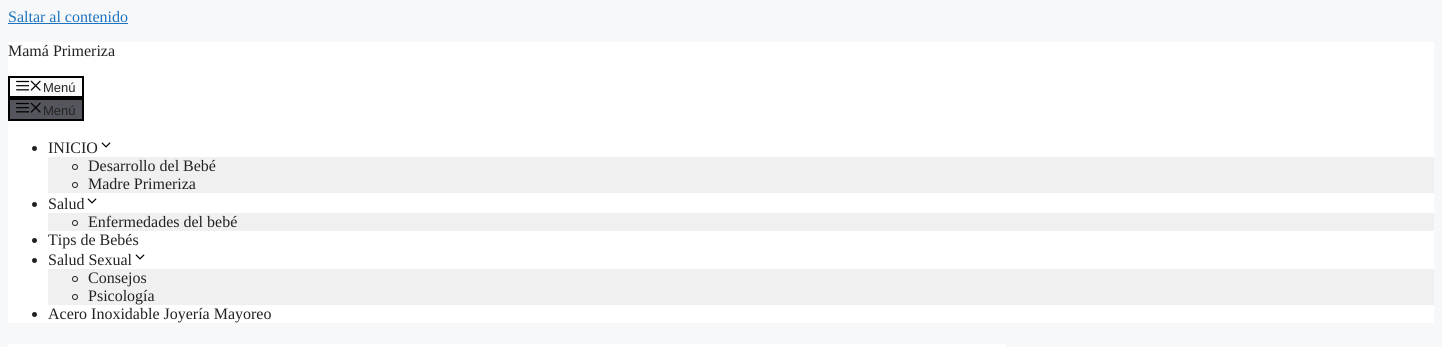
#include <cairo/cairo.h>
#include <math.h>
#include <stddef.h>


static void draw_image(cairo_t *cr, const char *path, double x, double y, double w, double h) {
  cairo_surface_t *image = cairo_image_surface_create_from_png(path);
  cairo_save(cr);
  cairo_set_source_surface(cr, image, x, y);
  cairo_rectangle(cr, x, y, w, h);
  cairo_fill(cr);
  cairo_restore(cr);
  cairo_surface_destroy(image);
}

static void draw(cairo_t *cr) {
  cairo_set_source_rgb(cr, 247 / 255.0, 248 / 255.0, 249 / 255.0);
  cairo_paint(cr);
  cairo_set_source_rgb(cr, 30 / 255.0, 115 / 255.0, 190 / 255.0);
  cairo_rectangle(cr, 8, 23, 120, 1);
  cairo_fill(cr);
  cairo_set_source_rgb(cr, 1, 1, 1);
  cairo_rectangle(cr, 8, 42, 1426, 281);
  cairo_fill(cr);
  cairo_set_source_rgb(cr, 250 / 255.0, 250 / 255.0, 250 / 255.0);
  cairo_rectangle(cr, 9, 77, 74, 20);
  cairo_fill_preserve(cr);
  cairo_set_source_rgb(cr, 0, 0, 0);
  cairo_stroke(cr);
  draw_image(cr, "images/1.png", 16, 80, 13, 11);
  draw_image(cr, "images/2.png", 30, 80, 11, 11);
  cairo_set_source_rgb(cr, 85 / 255.0, 85 / 255.0, 94 / 255.0);
  cairo_rectangle(cr, 9, 99, 74, 21);
  cairo_fill_preserve(cr);
  cairo_set_source_rgb(cr, 0, 0, 0);
  cairo_stroke(cr);
  draw_image(cr, "images/3.png", 16, 102, 13, 11);
  draw_image(cr, "images/4.png", 30, 102, 11, 11);
  draw_image(cr, "images/5.png", 101, 142, 10, 6);
  cairo_set_source_rgb(cr, 34 / 255.0, 34 / 255.0, 34 / 255.0);
  cairo_arc(cr, 34.5, 148.5, 2.5, 0, 2 * M_PI);
  cairo_fill(cr);
  cairo_set_source_rgb(cr, 240 / 255.0, 240 / 255.0, 240 / 255.0);
  cairo_rectangle(cr, 48, 157, 1386, 36);
  cairo_fill(cr);
  cairo_arc(cr, 75, 167, 2.5, 0, 2 * M_PI);
  cairo_set_source_rgb(cr, 34 / 255.0, 34 / 255.0, 34 / 255.0);
  cairo_set_line_width(cr, 1);
  cairo_stroke(cr);
  cairo_arc(cr, 75, 185, 2.5, 0, 2 * M_PI);
  cairo_stroke(cr);
  draw_image(cr, "images/5.png", 87, 198, 10, 6);
  cairo_arc(cr, 34.5, 204.5, 2.5, 0, 2 * M_PI);
  cairo_fill(cr);
  cairo_set_source_rgb(cr, 240 / 255.0, 240 / 255.0, 240 / 255.0);
  cairo_rectangle(cr, 48, 213, 1386, 18);
  cairo_fill(cr);
  cairo_arc(cr, 75, 223, 2.5, 0, 2 * M_PI);
  cairo_set_source_rgb(cr, 34 / 255.0, 34 / 255.0, 34 / 255.0);
  cairo_stroke(cr);
  cairo_arc(cr, 34.5, 240.5, 2.5, 0, 2 * M_PI);
  cairo_fill(cr);
  draw_image(cr, "images/5.png", 135, 254, 10, 6);
  cairo_arc(cr, 34.5, 260.5, 2.5, 0, 2 * M_PI);
  cairo_fill(cr);
  cairo_set_source_rgb(cr, 240 / 255.0, 240 / 255.0, 240 / 255.0);
  cairo_rectangle(cr, 48, 269, 1386, 36);
  cairo_fill(cr);
  cairo_arc(cr, 75, 279, 2.5, 0, 2 * M_PI);
  cairo_set_source_rgb(cr, 34 / 255.0, 34 / 255.0, 34 / 255.0);
  cairo_stroke(cr);
  cairo_arc(cr, 75, 297, 2.5, 0, 2 * M_PI);
  cairo_stroke(cr);
  cairo_arc(cr, 34.5, 314.5, 2.5, 0, 2 * M_PI);
  cairo_fill(cr);
  cairo_set_source_rgb(cr, 1, 1, 1);
  cairo_rectangle(cr, 8, 344, 998, 3);
  cairo_fill(cr);
  cairo_select_font_face(cr, "Liberation Serif", CAIRO_FONT_SLANT_NORMAL, CAIRO_FONT_WEIGHT_NORMAL);
  cairo_set_font_size(cr, 16);
  cairo_set_source_rgb(cr, 30 / 255.0, 115 / 255.0, 190 / 255.0);
  cairo_move_to(cr, 8, 22);
  cairo_show_text(cr, "Saltar al contenido");
  cairo_set_source_rgb(cr, 34 / 255.0, 34 / 255.0, 34 / 255.0);
  cairo_move_to(cr, 8, 56);
  cairo_show_text(cr, "Mamá Primeriza");
  cairo_select_font_face(cr, "Liberation Sans", CAIRO_FONT_SLANT_NORMAL, CAIRO_FONT_WEIGHT_NORMAL);
  cairo_set_font_size(cr, 13);
  cairo_move_to(cr, 43, 92);
  cairo_show_text(cr, "Menú");
  cairo_move_to(cr, 43, 115);
  cairo_show_text(cr, "Menú");
  cairo_select_font_face(cr, "Liberation Serif", CAIRO_FONT_SLANT_NORMAL, CAIRO_FONT_WEIGHT_NORMAL);
  cairo_set_font_size(cr, 16);
  cairo_move_to(cr, 48, 153);
  cairo_show_text(cr, "INICIO");
  cairo_move_to(cr, 88, 171);
  cairo_show_text(cr, "Desarrollo del Bebé");
  cairo_move_to(cr, 88, 189);
  cairo_show_text(cr, "Madre Primeriza");
  cairo_move_to(cr, 48, 209);
  cairo_show_text(cr, "Salud");
  cairo_move_to(cr, 88, 227);
  cairo_show_text(cr, "Enfermedades del bebé");
  cairo_move_to(cr, 48, 245);
  cairo_show_text(cr, "Tips de Bebés");
  cairo_move_to(cr, 48, 265);
  cairo_show_text(cr, "Salud Sexual");
  cairo_move_to(cr, 88, 283);
  cairo_show_text(cr, "Consejos");
  cairo_move_to(cr, 88, 301);
  cairo_show_text(cr, "Psicología");
  cairo_move_to(cr, 48, 319);
  cairo_show_text(cr, "Acero Inoxidable Joyería Mayoreo");
}

int main(void) {
  cairo_surface_t *surface = cairo_image_surface_create(CAIRO_FORMAT_RGB24, 1442, 347);
  cairo_t *cr = cairo_create(surface);
  cairo_font_options_t *options = cairo_font_options_create();
  cairo_font_options_set_hint_metrics(options, CAIRO_HINT_METRICS_OFF);
  cairo_font_options_set_hint_style(options, CAIRO_HINT_STYLE_NONE);
  cairo_set_font_options(cr, options);
  cairo_set_miter_limit(cr, 4);
  draw(cr);
  cairo_surface_write_to_png(surface, "out.png");
  cairo_font_options_destroy(options);
  cairo_destroy(cr);
  cairo_surface_destroy(surface);
  return 0;
}
